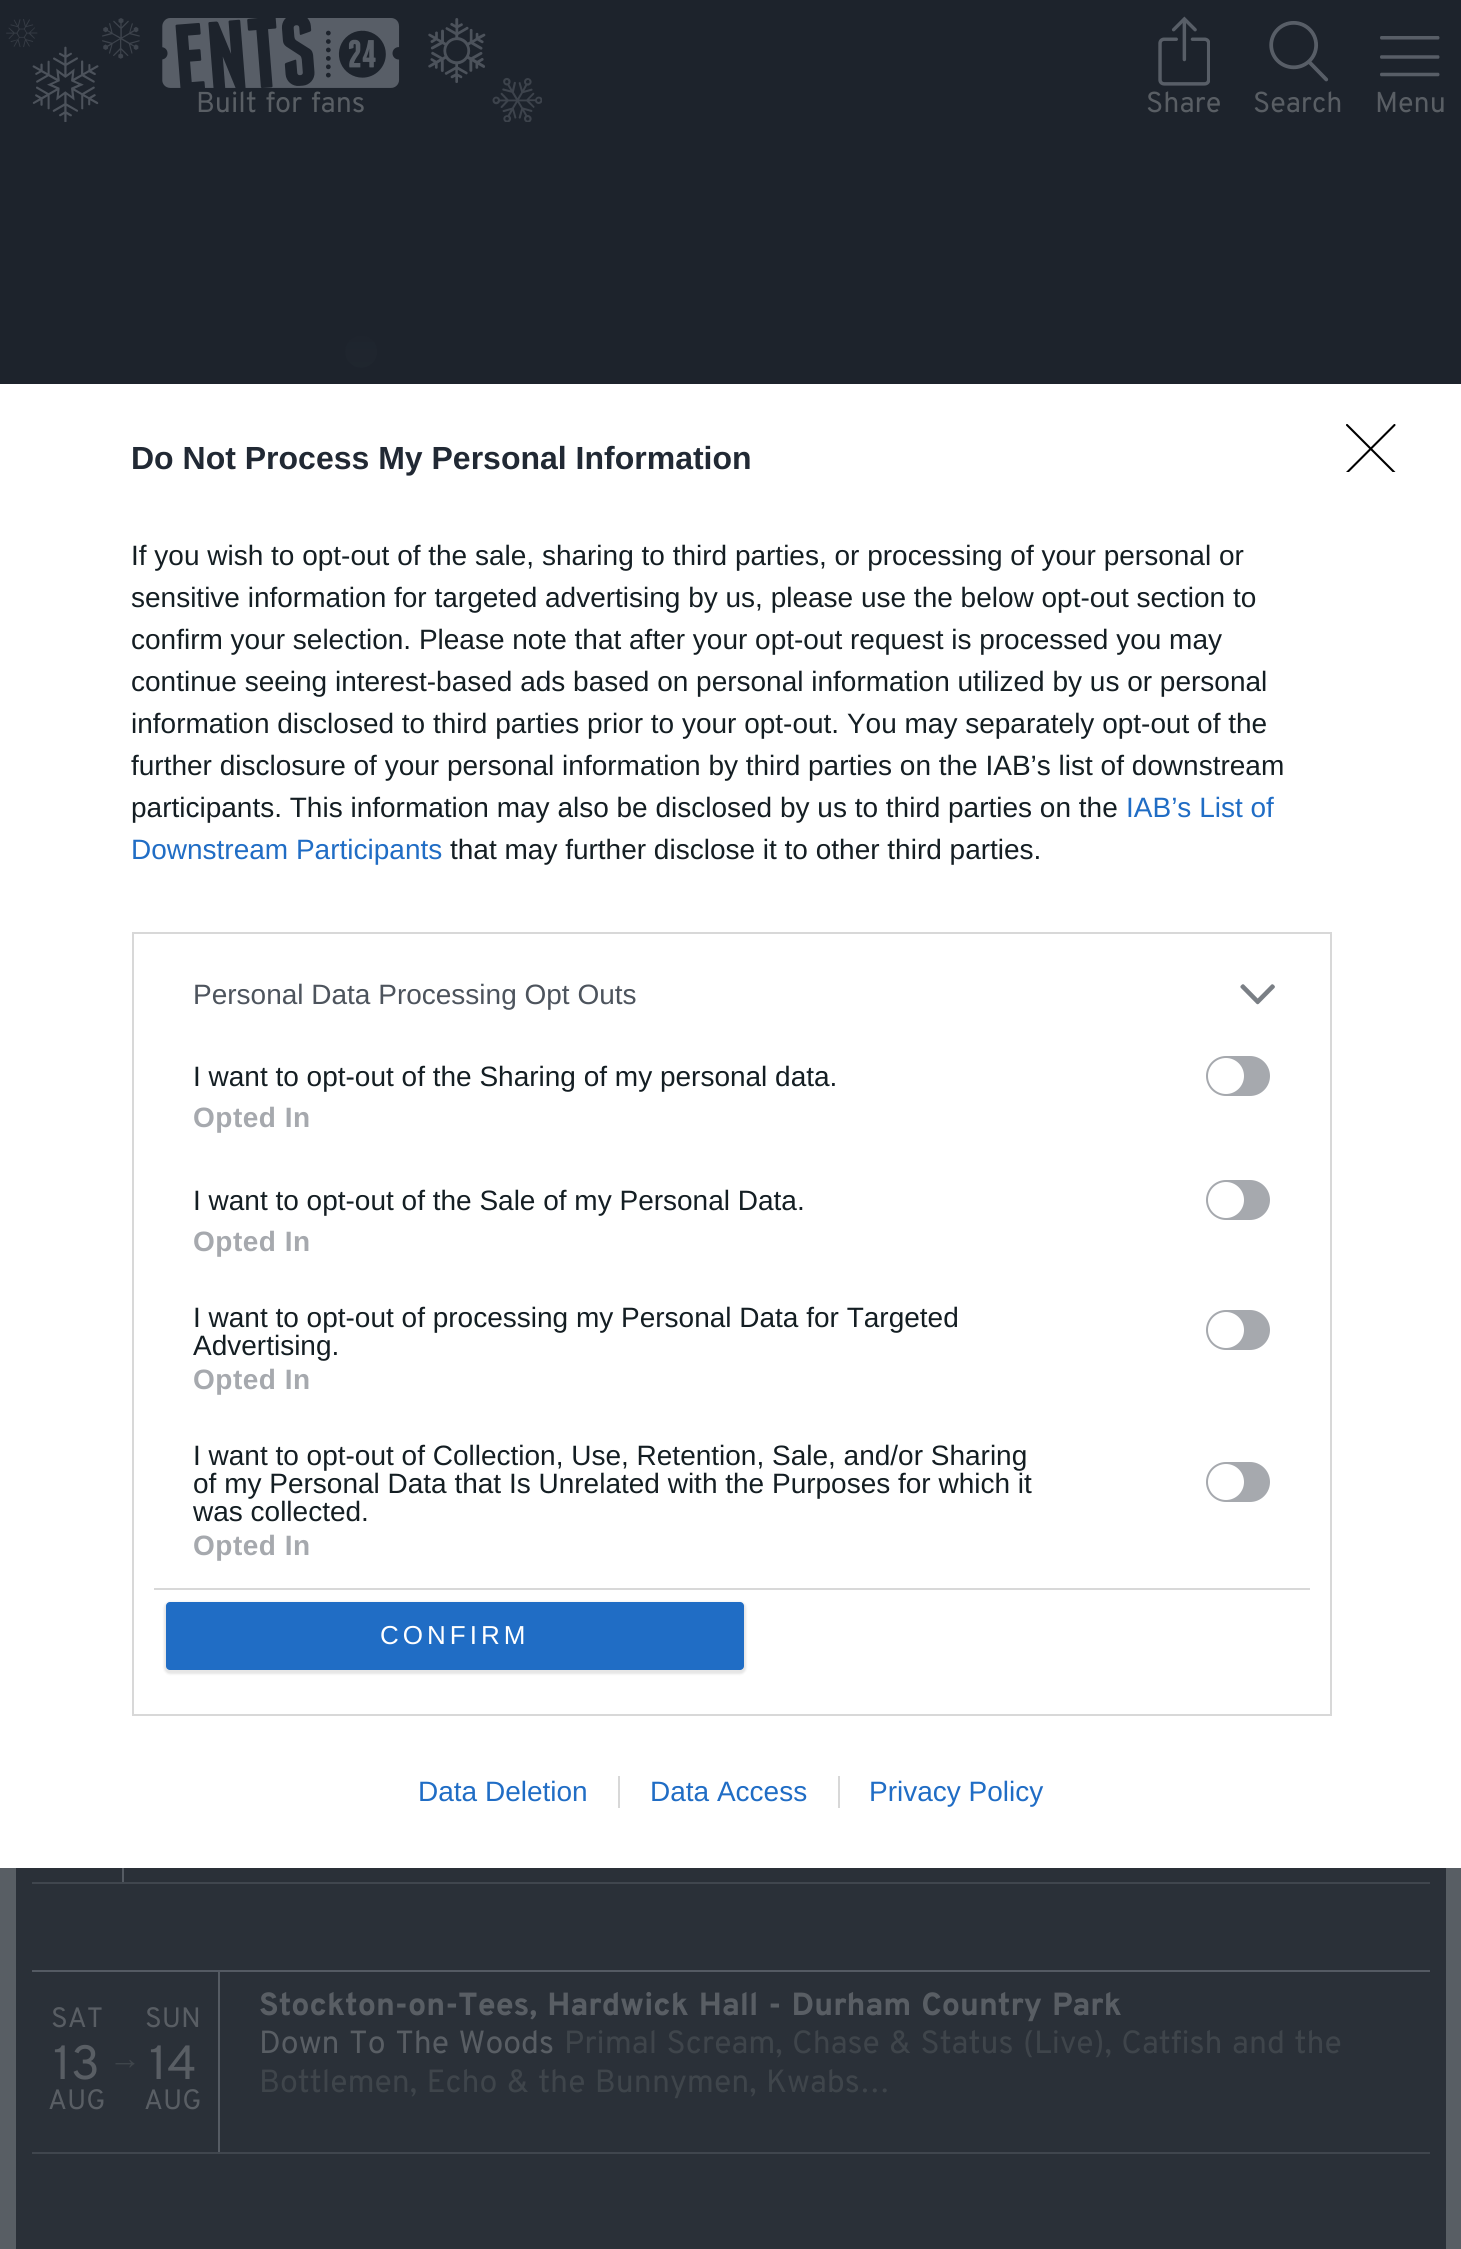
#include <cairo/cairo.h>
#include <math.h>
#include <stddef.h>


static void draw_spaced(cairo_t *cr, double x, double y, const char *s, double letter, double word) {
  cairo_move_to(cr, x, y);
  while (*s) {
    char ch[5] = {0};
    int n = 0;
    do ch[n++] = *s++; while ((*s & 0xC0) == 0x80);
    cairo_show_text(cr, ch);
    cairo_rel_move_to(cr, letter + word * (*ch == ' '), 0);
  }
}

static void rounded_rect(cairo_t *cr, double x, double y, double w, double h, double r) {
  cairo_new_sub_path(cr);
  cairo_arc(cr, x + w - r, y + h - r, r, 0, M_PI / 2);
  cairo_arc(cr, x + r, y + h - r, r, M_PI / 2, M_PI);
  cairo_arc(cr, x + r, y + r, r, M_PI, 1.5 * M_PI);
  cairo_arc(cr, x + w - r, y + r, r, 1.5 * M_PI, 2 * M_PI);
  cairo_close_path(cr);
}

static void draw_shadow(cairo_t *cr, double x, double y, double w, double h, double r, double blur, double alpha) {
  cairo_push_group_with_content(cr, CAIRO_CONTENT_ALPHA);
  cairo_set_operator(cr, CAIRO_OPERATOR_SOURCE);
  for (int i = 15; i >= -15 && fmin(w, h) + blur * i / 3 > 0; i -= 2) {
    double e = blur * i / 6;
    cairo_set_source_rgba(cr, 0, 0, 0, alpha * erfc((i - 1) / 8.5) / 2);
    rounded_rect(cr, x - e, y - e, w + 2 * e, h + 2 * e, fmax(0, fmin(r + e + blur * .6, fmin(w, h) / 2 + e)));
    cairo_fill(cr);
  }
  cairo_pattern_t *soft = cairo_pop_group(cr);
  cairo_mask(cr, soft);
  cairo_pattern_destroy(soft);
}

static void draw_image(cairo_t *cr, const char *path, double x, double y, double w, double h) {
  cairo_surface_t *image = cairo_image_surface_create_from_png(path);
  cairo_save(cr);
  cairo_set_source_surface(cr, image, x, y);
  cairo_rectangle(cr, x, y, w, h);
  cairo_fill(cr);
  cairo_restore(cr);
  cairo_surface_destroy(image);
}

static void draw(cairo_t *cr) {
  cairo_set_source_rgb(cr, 29 / 255.0, 35 / 255.0, 44 / 255.0);
  cairo_paint(cr);
  draw_image(cr, "images/1.png", 6, 18, 134, 104);
  draw_image(cr, "images/2.png", 428, 18, 114, 104);
  draw_image(cr, "images/3.png", 162, 18, 238, 70);
  draw_image(cr, "images/4.png", 1158, 16, 52, 70);
  draw_image(cr, "images/5.png", 1269, 21, 60, 61);
  draw_image(cr, "images/6.png", 1380, 36, 60, 41);
  draw_image(cr, "images/7.png", 345, 336, 32, 32);
  cairo_set_source_rgb(cr, 88 / 255.0, 94 / 255.0, 100 / 255.0);
  cairo_new_path(cr);
  cairo_move_to(cr, 0, 734);
  cairo_line_to(cr, 0, 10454);
  cairo_line_to(cr, 5, 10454);
  cairo_line_to(cr, 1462, 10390);
  cairo_line_to(cr, 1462, 670);
  cairo_line_to(cr, 1453, 670);
  cairo_close_path(cr);
  cairo_fill(cr);
  cairo_set_source_rgb(cr, 42 / 255.0, 48 / 255.0, 56 / 255.0);
  cairo_rectangle(cr, 16, 1868, 1430, 381);
  cairo_fill(cr);
  cairo_set_source_rgb(cr, 64 / 255.0, 70 / 255.0, 78 / 255.0);
  cairo_rectangle(cr, 32, 1882, 1398, 2);
  cairo_fill(cr);
  cairo_set_source_rgb(cr, 85 / 255.0, 91 / 255.0, 99 / 255.0);
  cairo_rectangle(cr, 122, 1868, 2, 14);
  cairo_fill(cr);
  cairo_set_source_rgb(cr, 84 / 255.0, 90 / 255.0, 99 / 255.0);
  cairo_rectangle(cr, 32, 1970, 1398, 2);
  cairo_fill(cr);
  cairo_set_source_rgb(cr, 64 / 255.0, 70 / 255.0, 78 / 255.0);
  cairo_rectangle(cr, 32, 2152, 1398, 2);
  cairo_fill(cr);
  cairo_set_source_rgb(cr, 85 / 255.0, 91 / 255.0, 99 / 255.0);
  cairo_rectangle(cr, 218, 1972, 2, 180);
  cairo_fill(cr);
  cairo_set_source_rgb(cr, 1, 1, 1);
  cairo_rectangle(cr, 0, 384, 1461, 1484);
  cairo_fill(cr);
  cairo_rectangle(cr, 133, 933, 1198, 782);
  cairo_set_source_rgb(cr, 216 / 255.0, 216 / 255.0, 216 / 255.0);
  cairo_stroke(cr);
  cairo_rectangle(cr, 154, 1588, 1156, 2);
  cairo_fill(cr);
  draw_image(cr, "images/8.png", 1240, 984, 35, 21);
  cairo_set_source_rgb(cr, 166 / 255.0, 169 / 255.0, 174 / 255.0);
  rounded_rect(cr, 1207, 1057, 62, 38, 19);
  cairo_fill_preserve(cr);
  cairo_stroke(cr);
  cairo_set_source_rgb(cr, 1, 1, 1);
  cairo_arc(cr, 1226, 1076, 18, 0, 2 * M_PI);
  cairo_fill(cr);
  cairo_set_source_rgb(cr, 166 / 255.0, 169 / 255.0, 174 / 255.0);
  rounded_rect(cr, 1207, 1181, 62, 38, 19);
  cairo_fill_preserve(cr);
  cairo_stroke(cr);
  cairo_set_source_rgb(cr, 1, 1, 1);
  cairo_arc(cr, 1226, 1200, 18, 0, 2 * M_PI);
  cairo_fill(cr);
  cairo_set_source_rgb(cr, 166 / 255.0, 169 / 255.0, 174 / 255.0);
  rounded_rect(cr, 1207, 1311, 62, 38, 19);
  cairo_fill_preserve(cr);
  cairo_stroke(cr);
  cairo_set_source_rgb(cr, 1, 1, 1);
  cairo_arc(cr, 1226, 1330, 18, 0, 2 * M_PI);
  cairo_fill(cr);
  cairo_set_source_rgb(cr, 166 / 255.0, 169 / 255.0, 174 / 255.0);
  rounded_rect(cr, 1207, 1463, 62, 38, 19);
  cairo_fill_preserve(cr);
  cairo_stroke(cr);
  cairo_set_source_rgb(cr, 1, 1, 1);
  cairo_arc(cr, 1226, 1482, 18, 0, 2 * M_PI);
  cairo_fill(cr);
  cairo_set_source_rgb(cr, 0, 0, 0);
  draw_shadow(cr, 164, 1602, 582, 72, 6, 1, 0.1);
  cairo_set_source_rgb(cr, 32 / 255.0, 109 / 255.0, 197 / 255.0);
  rounded_rect(cr, 166, 1602, 578, 68, 4);
  cairo_fill(cr);
  cairo_save(cr);
  cairo_rectangle(cr, 1346, 424, 50, 48);
  cairo_clip(cr);
  cairo_new_path(cr);
  cairo_move_to(cr, 1347, 425);
  cairo_line_to(cr, 1394.5, 472.5);
  cairo_move_to(cr, 1394.5, 425);
  cairo_line_to(cr, 1347, 472.5);
  cairo_set_source_rgb(cr, 0, 0, 0);
  cairo_set_line_width(cr, 2.1);
  cairo_set_line_cap(cr, CAIRO_LINE_CAP_ROUND);
  cairo_set_line_join(cr, CAIRO_LINE_JOIN_ROUND);
  cairo_stroke(cr);
  cairo_restore(cr);
  cairo_set_source_rgb(cr, 216 / 255.0, 216 / 255.0, 216 / 255.0);
  cairo_rectangle(cr, 618, 1776, 2, 32);
  cairo_fill(cr);
  cairo_rectangle(cr, 838, 1776, 2, 32);
  cairo_fill(cr);
  cairo_select_font_face(cr, "Overpass", CAIRO_FONT_SLANT_NORMAL, CAIRO_FONT_WEIGHT_NORMAL);
  cairo_set_font_size(cr, 28.75);
  cairo_set_source_rgb(cr, 89 / 255.0, 94 / 255.0, 100 / 255.0);
  draw_spaced(cr, 196, 112, "Built for fans", 0, 2);
  cairo_move_to(cr, 1146, 112);
  cairo_show_text(cr, "Share");
  cairo_move_to(cr, 1253, 112);
  cairo_show_text(cr, "Search");
  cairo_move_to(cr, 1375, 112);
  cairo_show_text(cr, "Menu");
  cairo_set_font_size(cr, 28);
  cairo_move_to(cr, 51, 2027);
  cairo_show_text(cr, "SAT");
  cairo_set_font_size(cr, 48);
  cairo_move_to(cr, 53, 2079);
  cairo_show_text(cr, "13");
  cairo_set_font_size(cr, 28);
  cairo_move_to(cr, 48, 2109);
  cairo_show_text(cr, "AUG");
  cairo_select_font_face(cr, "Liberation Sans", CAIRO_FONT_SLANT_NORMAL, CAIRO_FONT_WEIGHT_BOLD);
  cairo_set_font_size(cr, 32);
  cairo_set_source_rgb(cr, 63 / 255.0, 69 / 255.0, 75 / 255.0);
  cairo_move_to(cr, 109, 2069);
  cairo_show_text(cr, "→");
  cairo_select_font_face(cr, "Overpass", CAIRO_FONT_SLANT_NORMAL, CAIRO_FONT_WEIGHT_NORMAL);
  cairo_set_font_size(cr, 28);
  cairo_set_source_rgb(cr, 89 / 255.0, 94 / 255.0, 100 / 255.0);
  cairo_move_to(cr, 145, 2027);
  cairo_show_text(cr, "SUN");
  cairo_set_font_size(cr, 48);
  cairo_move_to(cr, 149, 2079);
  cairo_show_text(cr, "14");
  cairo_set_font_size(cr, 28);
  cairo_move_to(cr, 144, 2109);
  cairo_show_text(cr, "AUG");
  cairo_select_font_face(cr, "Overpass ExtraBold", CAIRO_FONT_SLANT_NORMAL, CAIRO_FONT_WEIGHT_NORMAL);
  cairo_set_font_size(cr, 32);
  draw_spaced(cr, 259, 2015, "Stockton-on-Tees, Hardwick Hall - Durham Country Park", 0, 2);
  cairo_select_font_face(cr, "Overpass", CAIRO_FONT_SLANT_NORMAL, CAIRO_FONT_WEIGHT_NORMAL);
  draw_spaced(cr, 259, 2053, "Down To The Woods", 0, 2);
  cairo_set_source_rgb(cr, 63 / 255.0, 69 / 255.0, 75 / 255.0);
  draw_spaced(cr, 564, 2053, "Primal Scream, Chase & Status (Live), Catfish and the", 0, 2);
  draw_spaced(cr, 259, 2092, "Bottlemen, Echo & the Bunnymen, Kwabs…", 0, 2);
  cairo_select_font_face(cr, "Liberation Sans", CAIRO_FONT_SLANT_NORMAL, CAIRO_FONT_WEIGHT_BOLD);
  cairo_set_source_rgb(cr, 33 / 255.0, 41 / 255.0, 52 / 255.0);
  cairo_move_to(cr, 131, 469);
  cairo_show_text(cr, "Do Not Process My Personal Information");
  cairo_select_font_face(cr, "Liberation Sans", CAIRO_FONT_SLANT_NORMAL, CAIRO_FONT_WEIGHT_NORMAL);
  cairo_set_font_size(cr, 28);
  cairo_set_source_rgb(cr, 20 / 255.0, 30 / 255.0, 35 / 255.0);
  cairo_move_to(cr, 131, 565);
  cairo_show_text(cr, "If you wish to opt-out of the sale, sharing to third parties, or processing of your personal or");
  cairo_move_to(cr, 131, 607);
  cairo_show_text(cr, "sensitive information for targeted advertising by us, please use the below opt-out section to");
  cairo_move_to(cr, 131, 649);
  cairo_show_text(cr, "confirm your selection. Please note that after your opt-out request is processed you may");
  cairo_move_to(cr, 131, 691);
  cairo_show_text(cr, "continue seeing interest-based ads based on personal information utilized by us or personal");
  cairo_move_to(cr, 131, 733);
  cairo_show_text(cr, "information disclosed to third parties prior to your opt-out. You may separately opt-out of the");
  cairo_move_to(cr, 131, 775);
  cairo_show_text(cr, "further disclosure of your personal information by third parties on the IAB’s list of downstream");
  cairo_move_to(cr, 131, 817);
  cairo_show_text(cr, "participants. This information may also be disclosed by us to third parties on the");
  cairo_set_source_rgb(cr, 32 / 255.0, 109 / 255.0, 197 / 255.0);
  cairo_move_to(cr, 1126, 817);
  cairo_show_text(cr, "IAB’s List of");
  cairo_move_to(cr, 131, 859);
  cairo_show_text(cr, "Downstream Participants");
  cairo_set_source_rgb(cr, 20 / 255.0, 30 / 255.0, 35 / 255.0);
  cairo_move_to(cr, 450, 859);
  cairo_show_text(cr, "that may further disclose it to other third parties.");
  cairo_set_source_rgb(cr, 77 / 255.0, 84 / 255.0, 93 / 255.0);
  cairo_move_to(cr, 193, 1004);
  cairo_show_text(cr, "Personal Data Processing Opt Outs");
  cairo_set_source_rgb(cr, 20 / 255.0, 30 / 255.0, 35 / 255.0);
  cairo_move_to(cr, 193, 1086);
  cairo_show_text(cr, "I want to opt-out of the Sharing of my personal data.");
  cairo_select_font_face(cr, "Liberation Sans", CAIRO_FONT_SLANT_NORMAL, CAIRO_FONT_WEIGHT_BOLD);
  cairo_set_source_rgb(cr, 166 / 255.0, 169 / 255.0, 174 / 255.0);
  draw_spaced(cr, 193, 1127, "Opted In", 0.5, 0);
  cairo_select_font_face(cr, "Liberation Sans", CAIRO_FONT_SLANT_NORMAL, CAIRO_FONT_WEIGHT_NORMAL);
  cairo_set_source_rgb(cr, 20 / 255.0, 30 / 255.0, 35 / 255.0);
  cairo_move_to(cr, 193, 1210);
  cairo_show_text(cr, "I want to opt-out of the Sale of my Personal Data.");
  cairo_select_font_face(cr, "Liberation Sans", CAIRO_FONT_SLANT_NORMAL, CAIRO_FONT_WEIGHT_BOLD);
  cairo_set_source_rgb(cr, 166 / 255.0, 169 / 255.0, 174 / 255.0);
  draw_spaced(cr, 193, 1251, "Opted In", 0.5, 0);
  cairo_select_font_face(cr, "Liberation Sans", CAIRO_FONT_SLANT_NORMAL, CAIRO_FONT_WEIGHT_NORMAL);
  cairo_set_source_rgb(cr, 20 / 255.0, 30 / 255.0, 35 / 255.0);
  cairo_move_to(cr, 193, 1327);
  cairo_show_text(cr, "I want to opt-out of processing my Personal Data for Targeted");
  cairo_move_to(cr, 193, 1355);
  cairo_show_text(cr, "Advertising.");
  cairo_select_font_face(cr, "Liberation Sans", CAIRO_FONT_SLANT_NORMAL, CAIRO_FONT_WEIGHT_BOLD);
  cairo_set_source_rgb(cr, 166 / 255.0, 169 / 255.0, 174 / 255.0);
  draw_spaced(cr, 193, 1389, "Opted In", 0.5, 0);
  cairo_select_font_face(cr, "Liberation Sans", CAIRO_FONT_SLANT_NORMAL, CAIRO_FONT_WEIGHT_NORMAL);
  cairo_set_source_rgb(cr, 20 / 255.0, 30 / 255.0, 35 / 255.0);
  cairo_move_to(cr, 193, 1465);
  cairo_show_text(cr, "I want to opt-out of Collection, Use, Retention, Sale, and/or Sharing");
  cairo_move_to(cr, 193, 1493);
  cairo_show_text(cr, "of my Personal Data that Is Unrelated with the Purposes for which it");
  cairo_move_to(cr, 193, 1521);
  cairo_show_text(cr, "was collected.");
  cairo_select_font_face(cr, "Liberation Sans", CAIRO_FONT_SLANT_NORMAL, CAIRO_FONT_WEIGHT_BOLD);
  cairo_set_source_rgb(cr, 166 / 255.0, 169 / 255.0, 174 / 255.0);
  draw_spaced(cr, 193, 1555, "Opted In", 0.5, 0);
  cairo_select_font_face(cr, "Liberation Sans", CAIRO_FONT_SLANT_NORMAL, CAIRO_FONT_WEIGHT_NORMAL);
  cairo_set_font_size(cr, 26);
  cairo_set_source_rgb(cr, 1, 1, 1);
  draw_spaced(cr, 380, 1644, "CONFIRM", 4, 0);
  cairo_set_font_size(cr, 28);
  cairo_set_source_rgb(cr, 32 / 255.0, 109 / 255.0, 197 / 255.0);
  cairo_move_to(cr, 418, 1801);
  cairo_show_text(cr, "Data Deletion");
  cairo_move_to(cr, 650, 1801);
  cairo_show_text(cr, "Data Access");
  cairo_move_to(cr, 869, 1801);
  cairo_show_text(cr, "Privacy Policy");
}

int main(void) {
  cairo_surface_t *surface = cairo_image_surface_create(CAIRO_FORMAT_RGB24, 1461, 2249);
  cairo_t *cr = cairo_create(surface);
  cairo_font_options_t *options = cairo_font_options_create();
  cairo_font_options_set_hint_metrics(options, CAIRO_HINT_METRICS_OFF);
  cairo_font_options_set_hint_style(options, CAIRO_HINT_STYLE_NONE);
  cairo_set_font_options(cr, options);
  cairo_set_miter_limit(cr, 4);
  draw(cr);
  cairo_surface_write_to_png(surface, "out.png");
  cairo_font_options_destroy(options);
  cairo_destroy(cr);
  cairo_surface_destroy(surface);
  return 0;
}
